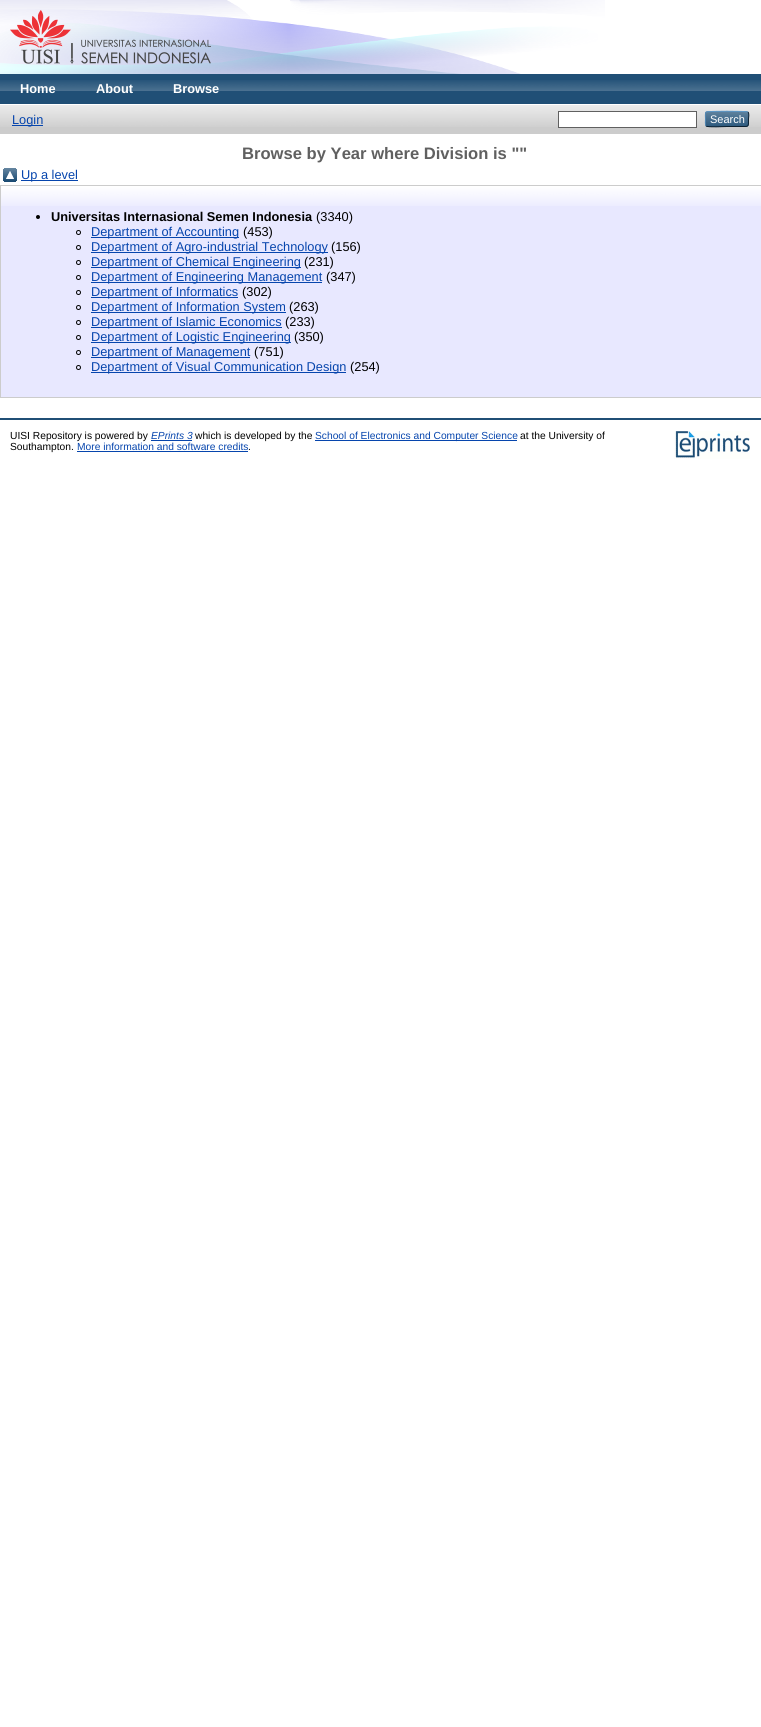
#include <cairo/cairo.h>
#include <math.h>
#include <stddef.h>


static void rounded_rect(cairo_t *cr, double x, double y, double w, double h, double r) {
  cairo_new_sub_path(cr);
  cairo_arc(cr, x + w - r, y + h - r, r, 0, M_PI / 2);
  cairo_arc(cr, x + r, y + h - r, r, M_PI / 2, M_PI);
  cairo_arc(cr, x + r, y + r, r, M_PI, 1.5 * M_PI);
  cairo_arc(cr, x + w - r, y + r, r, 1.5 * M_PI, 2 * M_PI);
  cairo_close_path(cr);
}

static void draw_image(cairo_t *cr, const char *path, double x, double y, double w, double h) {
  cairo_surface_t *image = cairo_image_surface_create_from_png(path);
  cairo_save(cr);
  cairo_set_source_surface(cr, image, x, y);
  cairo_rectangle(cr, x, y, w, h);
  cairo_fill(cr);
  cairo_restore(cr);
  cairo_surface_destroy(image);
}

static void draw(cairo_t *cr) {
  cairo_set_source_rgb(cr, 1, 1, 1);
  cairo_paint(cr);
  draw_image(cr, "images/1.png", 0, 0, 605, 74);
  draw_image(cr, "images/2.png", 10, 10, 201, 54);
  cairo_set_source_rgb(cr, 32 / 255.0, 79 / 255.0, 118 / 255.0);
  cairo_rectangle(cr, 0, 74, 761, 30);
  cairo_fill(cr);
  draw_image(cr, "images/3.png", 0, 80, 761, 11);
  cairo_set_source_rgb(cr, 204 / 255.0, 204 / 255.0, 204 / 255.0);
  cairo_rectangle(cr, 0, 105, 761, 29);
  cairo_fill(cr);
  draw_image(cr, "images/4.png", 0, 105, 761, 22);
  cairo_set_source_rgb(cr, 6 / 255.0, 69 / 255.0, 173 / 255.0);
  cairo_rectangle(cr, 12, 125, 31, 1);
  cairo_fill(cr);
  cairo_set_source_rgb(cr, 1, 1, 1);
  cairo_rectangle(cr, 558.5, 111.5, 138, 16);
  cairo_fill_preserve(cr);
  cairo_set_source_rgb(cr, 96 / 255.0, 96 / 255.0, 96 / 255.0);
  cairo_set_line_width(cr, 1);
  cairo_stroke(cr);
  cairo_set_source_rgb(cr, 31 / 255.0, 79 / 255.0, 118 / 255.0);
  rounded_rect(cr, 705, 111, 44, 16, 3);
  cairo_fill(cr);
  draw_image(cr, "images/5.png", 705, 111, 44, 16);
  cairo_new_path(cr);
  cairo_move_to(cr, 706, 112);
  cairo_curve_to(cr, 707.5, 111, 746.5, 111, 748, 112);
  cairo_set_source_rgb(cr, 91 / 255.0, 151 / 255.0, 199 / 255.0);
  cairo_stroke(cr);
  cairo_new_path(cr);
  cairo_move_to(cr, 748, 112);
  cairo_curve_to(cr, 749.5, 114, 748.5, 117, 748.5, 119);
  cairo_curve_to(cr, 748.5, 127.5, 749, 126.5, 739.5, 126.5);
  cairo_line_to(cr, 727, 126.5);
  cairo_curve_to(cr, 724, 126.5, 708, 127.5, 706, 126);
  cairo_set_source_rgb(cr, 13 / 255.0, 33 / 255.0, 49 / 255.0);
  cairo_stroke(cr);
  cairo_new_path(cr);
  cairo_move_to(cr, 706, 126);
  cairo_curve_to(cr, 705, 124.5, 705.5, 120.5, 705.5, 119);
  cairo_curve_to(cr, 705.5, 117.5, 705, 113.5, 706, 112);
  cairo_set_source_rgb(cr, 82 / 255.0, 135 / 255.0, 179 / 255.0);
  cairo_stroke(cr);
  draw_image(cr, "images/6.png", 3, 168, 14, 14);
  cairo_set_source_rgb(cr, 6 / 255.0, 69 / 255.0, 173 / 255.0);
  cairo_rectangle(cr, 21, 180, 57, 1);
  cairo_fill(cr);
  cairo_set_source_rgb(cr, 232 / 255.0, 232 / 255.0, 1);
  cairo_rectangle(cr, 1, 187, 760, 210);
  cairo_fill(cr);
  draw_image(cr, "images/7.png", 1, 186, 760, 20);
  cairo_rectangle(cr, 0.5, 185.5, 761, 212);
  cairo_set_source_rgb(cr, 204 / 255.0, 204 / 255.0, 204 / 255.0);
  cairo_stroke(cr);
  cairo_set_source_rgb(cr, 0, 0, 0);
  cairo_arc(cr, 38, 217, 2, 0, 2 * M_PI);
  cairo_fill(cr);
  cairo_arc(cr, 78.5, 232.5, 2, 0, 2 * M_PI);
  cairo_stroke(cr);
  cairo_set_source_rgb(cr, 6 / 255.0, 69 / 255.0, 173 / 255.0);
  cairo_rectangle(cr, 91, 237, 148, 1);
  cairo_fill(cr);
  cairo_arc(cr, 78.5, 247.5, 2, 0, 2 * M_PI);
  cairo_set_source_rgb(cr, 0, 0, 0);
  cairo_stroke(cr);
  cairo_set_source_rgb(cr, 6 / 255.0, 69 / 255.0, 173 / 255.0);
  cairo_rectangle(cr, 91, 252, 237, 1);
  cairo_fill(cr);
  cairo_arc(cr, 78.5, 262.5, 2, 0, 2 * M_PI);
  cairo_set_source_rgb(cr, 0, 0, 0);
  cairo_stroke(cr);
  cairo_set_source_rgb(cr, 6 / 255.0, 69 / 255.0, 173 / 255.0);
  cairo_rectangle(cr, 91, 267, 210, 1);
  cairo_fill(cr);
  cairo_arc(cr, 78.5, 277.5, 2, 0, 2 * M_PI);
  cairo_set_source_rgb(cr, 0, 0, 0);
  cairo_stroke(cr);
  cairo_set_source_rgb(cr, 6 / 255.0, 69 / 255.0, 173 / 255.0);
  cairo_rectangle(cr, 91, 282, 231, 1);
  cairo_fill(cr);
  cairo_arc(cr, 78.5, 292.5, 2, 0, 2 * M_PI);
  cairo_set_source_rgb(cr, 0, 0, 0);
  cairo_stroke(cr);
  cairo_set_source_rgb(cr, 6 / 255.0, 69 / 255.0, 173 / 255.0);
  cairo_rectangle(cr, 91, 297, 147, 1);
  cairo_fill(cr);
  cairo_arc(cr, 78.5, 307.5, 2, 0, 2 * M_PI);
  cairo_set_source_rgb(cr, 0, 0, 0);
  cairo_stroke(cr);
  cairo_set_source_rgb(cr, 6 / 255.0, 69 / 255.0, 173 / 255.0);
  cairo_rectangle(cr, 91, 312, 195, 1);
  cairo_fill(cr);
  cairo_arc(cr, 78.5, 322.5, 2, 0, 2 * M_PI);
  cairo_set_source_rgb(cr, 0, 0, 0);
  cairo_stroke(cr);
  cairo_set_source_rgb(cr, 6 / 255.0, 69 / 255.0, 173 / 255.0);
  cairo_rectangle(cr, 91, 327, 191, 1);
  cairo_fill(cr);
  cairo_arc(cr, 78.5, 337.5, 2, 0, 2 * M_PI);
  cairo_set_source_rgb(cr, 0, 0, 0);
  cairo_stroke(cr);
  cairo_set_source_rgb(cr, 6 / 255.0, 69 / 255.0, 173 / 255.0);
  cairo_rectangle(cr, 91, 342, 200, 1);
  cairo_fill(cr);
  cairo_arc(cr, 78.5, 352.5, 2, 0, 2 * M_PI);
  cairo_set_source_rgb(cr, 0, 0, 0);
  cairo_stroke(cr);
  cairo_set_source_rgb(cr, 6 / 255.0, 69 / 255.0, 173 / 255.0);
  cairo_rectangle(cr, 91, 357, 159, 1);
  cairo_fill(cr);
  cairo_arc(cr, 78.5, 367.5, 2, 0, 2 * M_PI);
  cairo_set_source_rgb(cr, 0, 0, 0);
  cairo_stroke(cr);
  cairo_set_source_rgb(cr, 6 / 255.0, 69 / 255.0, 173 / 255.0);
  cairo_rectangle(cr, 91, 372, 255, 1);
  cairo_fill(cr);
  cairo_set_source_rgb(cr, 32 / 255.0, 79 / 255.0, 118 / 255.0);
  cairo_rectangle(cr, 0, 418, 761, 2);
  cairo_fill(cr);
  cairo_set_source_rgb(cr, 6 / 255.0, 69 / 255.0, 173 / 255.0);
  cairo_rectangle(cr, 151, 440, 41, 1);
  cairo_fill(cr);
  cairo_rectangle(cr, 315, 440, 202, 1);
  cairo_fill(cr);
  cairo_rectangle(cr, 77, 451, 171, 1);
  cairo_fill(cr);
  draw_image(cr, "images/8.png", 674, 431, 76, 28);
  cairo_select_font_face(cr, "Liberation Sans", CAIRO_FONT_SLANT_NORMAL, CAIRO_FONT_WEIGHT_BOLD);
  cairo_set_font_size(cr, 12.8);
  cairo_set_source_rgb(cr, 1, 1, 1);
  cairo_move_to(cr, 20, 93);
  cairo_show_text(cr, "Home");
  cairo_move_to(cr, 96, 93);
  cairo_show_text(cr, "About");
  cairo_move_to(cr, 173, 93);
  cairo_show_text(cr, "Browse");
  cairo_select_font_face(cr, "Liberation Sans", CAIRO_FONT_SLANT_NORMAL, CAIRO_FONT_WEIGHT_NORMAL);
  cairo_set_source_rgb(cr, 6 / 255.0, 69 / 255.0, 173 / 255.0);
  cairo_move_to(cr, 12, 124);
  cairo_show_text(cr, "Login");
  cairo_set_font_size(cr, 11);
  cairo_set_source_rgb(cr, 1, 1, 1);
  cairo_move_to(cr, 710, 123);
  cairo_show_text(cr, "Search");
  cairo_select_font_face(cr, "Liberation Sans", CAIRO_FONT_SLANT_NORMAL, CAIRO_FONT_WEIGHT_BOLD);
  cairo_set_font_size(cr, 16.6);
  cairo_set_source_rgb(cr, 96 / 255.0, 96 / 255.0, 96 / 255.0);
  cairo_move_to(cr, 242, 159);
  cairo_show_text(cr, "Browse by Year where Division is \"\"");
  cairo_select_font_face(cr, "Liberation Sans", CAIRO_FONT_SLANT_NORMAL, CAIRO_FONT_WEIGHT_NORMAL);
  cairo_set_font_size(cr, 12.8);
  cairo_set_source_rgb(cr, 6 / 255.0, 69 / 255.0, 173 / 255.0);
  cairo_move_to(cr, 21, 179);
  cairo_show_text(cr, "Up a level");
  cairo_select_font_face(cr, "Liberation Sans", CAIRO_FONT_SLANT_NORMAL, CAIRO_FONT_WEIGHT_BOLD);
  cairo_set_source_rgb(cr, 0, 0, 0);
  cairo_move_to(cr, 51, 221);
  cairo_show_text(cr, "Universitas Internasional Semen Indonesia");
  cairo_select_font_face(cr, "Liberation Sans", CAIRO_FONT_SLANT_NORMAL, CAIRO_FONT_WEIGHT_NORMAL);
  cairo_move_to(cr, 316, 221);
  cairo_show_text(cr, "(3340)");
  cairo_set_source_rgb(cr, 6 / 255.0, 69 / 255.0, 173 / 255.0);
  cairo_move_to(cr, 91, 236);
  cairo_show_text(cr, "Department of Accounting");
  cairo_set_source_rgb(cr, 0, 0, 0);
  cairo_move_to(cr, 243, 236);
  cairo_show_text(cr, "(453)");
  cairo_set_source_rgb(cr, 6 / 255.0, 69 / 255.0, 173 / 255.0);
  cairo_move_to(cr, 91, 251);
  cairo_show_text(cr, "Department of Agro-industrial Technology");
  cairo_set_source_rgb(cr, 0, 0, 0);
  cairo_move_to(cr, 331, 251);
  cairo_show_text(cr, "(156)");
  cairo_set_source_rgb(cr, 6 / 255.0, 69 / 255.0, 173 / 255.0);
  cairo_move_to(cr, 91, 266);
  cairo_show_text(cr, "Department of Chemical Engineering");
  cairo_set_source_rgb(cr, 0, 0, 0);
  cairo_move_to(cr, 304, 266);
  cairo_show_text(cr, "(231)");
  cairo_set_source_rgb(cr, 6 / 255.0, 69 / 255.0, 173 / 255.0);
  cairo_move_to(cr, 91, 281);
  cairo_show_text(cr, "Department of Engineering Management");
  cairo_set_source_rgb(cr, 0, 0, 0);
  cairo_move_to(cr, 326, 281);
  cairo_show_text(cr, "(347)");
  cairo_set_source_rgb(cr, 6 / 255.0, 69 / 255.0, 173 / 255.0);
  cairo_move_to(cr, 91, 296);
  cairo_show_text(cr, "Department of Informatics");
  cairo_set_source_rgb(cr, 0, 0, 0);
  cairo_move_to(cr, 242, 296);
  cairo_show_text(cr, "(302)");
  cairo_set_source_rgb(cr, 6 / 255.0, 69 / 255.0, 173 / 255.0);
  cairo_move_to(cr, 91, 311);
  cairo_show_text(cr, "Department of Information System");
  cairo_set_source_rgb(cr, 0, 0, 0);
  cairo_move_to(cr, 289, 311);
  cairo_show_text(cr, "(263)");
  cairo_set_source_rgb(cr, 6 / 255.0, 69 / 255.0, 173 / 255.0);
  cairo_move_to(cr, 91, 326);
  cairo_show_text(cr, "Department of Islamic Economics");
  cairo_set_source_rgb(cr, 0, 0, 0);
  cairo_move_to(cr, 285, 326);
  cairo_show_text(cr, "(233)");
  cairo_set_source_rgb(cr, 6 / 255.0, 69 / 255.0, 173 / 255.0);
  cairo_move_to(cr, 91, 341);
  cairo_show_text(cr, "Department of Logistic Engineering");
  cairo_set_source_rgb(cr, 0, 0, 0);
  cairo_move_to(cr, 294, 341);
  cairo_show_text(cr, "(350)");
  cairo_set_source_rgb(cr, 6 / 255.0, 69 / 255.0, 173 / 255.0);
  cairo_move_to(cr, 91, 356);
  cairo_show_text(cr, "Department of Management");
  cairo_set_source_rgb(cr, 0, 0, 0);
  cairo_move_to(cr, 254, 356);
  cairo_show_text(cr, "(751)");
  cairo_set_source_rgb(cr, 6 / 255.0, 69 / 255.0, 173 / 255.0);
  cairo_move_to(cr, 91, 371);
  cairo_show_text(cr, "Department of Visual Communication Design");
  cairo_set_source_rgb(cr, 0, 0, 0);
  cairo_move_to(cr, 350, 371);
  cairo_show_text(cr, "(254)");
  cairo_set_font_size(cr, 10.25);
  cairo_move_to(cr, 10, 439);
  cairo_show_text(cr, "UISI Repository is powered by");
  cairo_select_font_face(cr, "Liberation Sans", CAIRO_FONT_SLANT_ITALIC, CAIRO_FONT_WEIGHT_NORMAL);
  cairo_set_source_rgb(cr, 6 / 255.0, 69 / 255.0, 173 / 255.0);
  cairo_move_to(cr, 151, 439);
  cairo_show_text(cr, "EPrints 3");
  cairo_select_font_face(cr, "Liberation Sans", CAIRO_FONT_SLANT_NORMAL, CAIRO_FONT_WEIGHT_NORMAL);
  cairo_set_source_rgb(cr, 0, 0, 0);
  cairo_move_to(cr, 195, 439);
  cairo_show_text(cr, "which is developed by the");
  cairo_set_source_rgb(cr, 6 / 255.0, 69 / 255.0, 173 / 255.0);
  cairo_move_to(cr, 315, 439);
  cairo_show_text(cr, "School of Electronics and Computer Science");
  cairo_set_source_rgb(cr, 0, 0, 0);
  cairo_move_to(cr, 520, 439);
  cairo_show_text(cr, "at the University of");
  cairo_move_to(cr, 10, 450);
  cairo_show_text(cr, "Southampton.");
  cairo_set_source_rgb(cr, 6 / 255.0, 69 / 255.0, 173 / 255.0);
  cairo_move_to(cr, 77, 450);
  cairo_show_text(cr, "More information and software credits");
  cairo_set_source_rgb(cr, 0, 0, 0);
  cairo_move_to(cr, 248, 450);
  cairo_show_text(cr, ".");
}

int main(void) {
  cairo_surface_t *surface = cairo_image_surface_create(CAIRO_FORMAT_RGB24, 761, 1727);
  cairo_t *cr = cairo_create(surface);
  cairo_font_options_t *options = cairo_font_options_create();
  cairo_font_options_set_hint_metrics(options, CAIRO_HINT_METRICS_OFF);
  cairo_font_options_set_hint_style(options, CAIRO_HINT_STYLE_NONE);
  cairo_set_font_options(cr, options);
  cairo_set_miter_limit(cr, 4);
  draw(cr);
  cairo_surface_write_to_png(surface, "out.png");
  cairo_font_options_destroy(options);
  cairo_destroy(cr);
  cairo_surface_destroy(surface);
  return 0;
}
